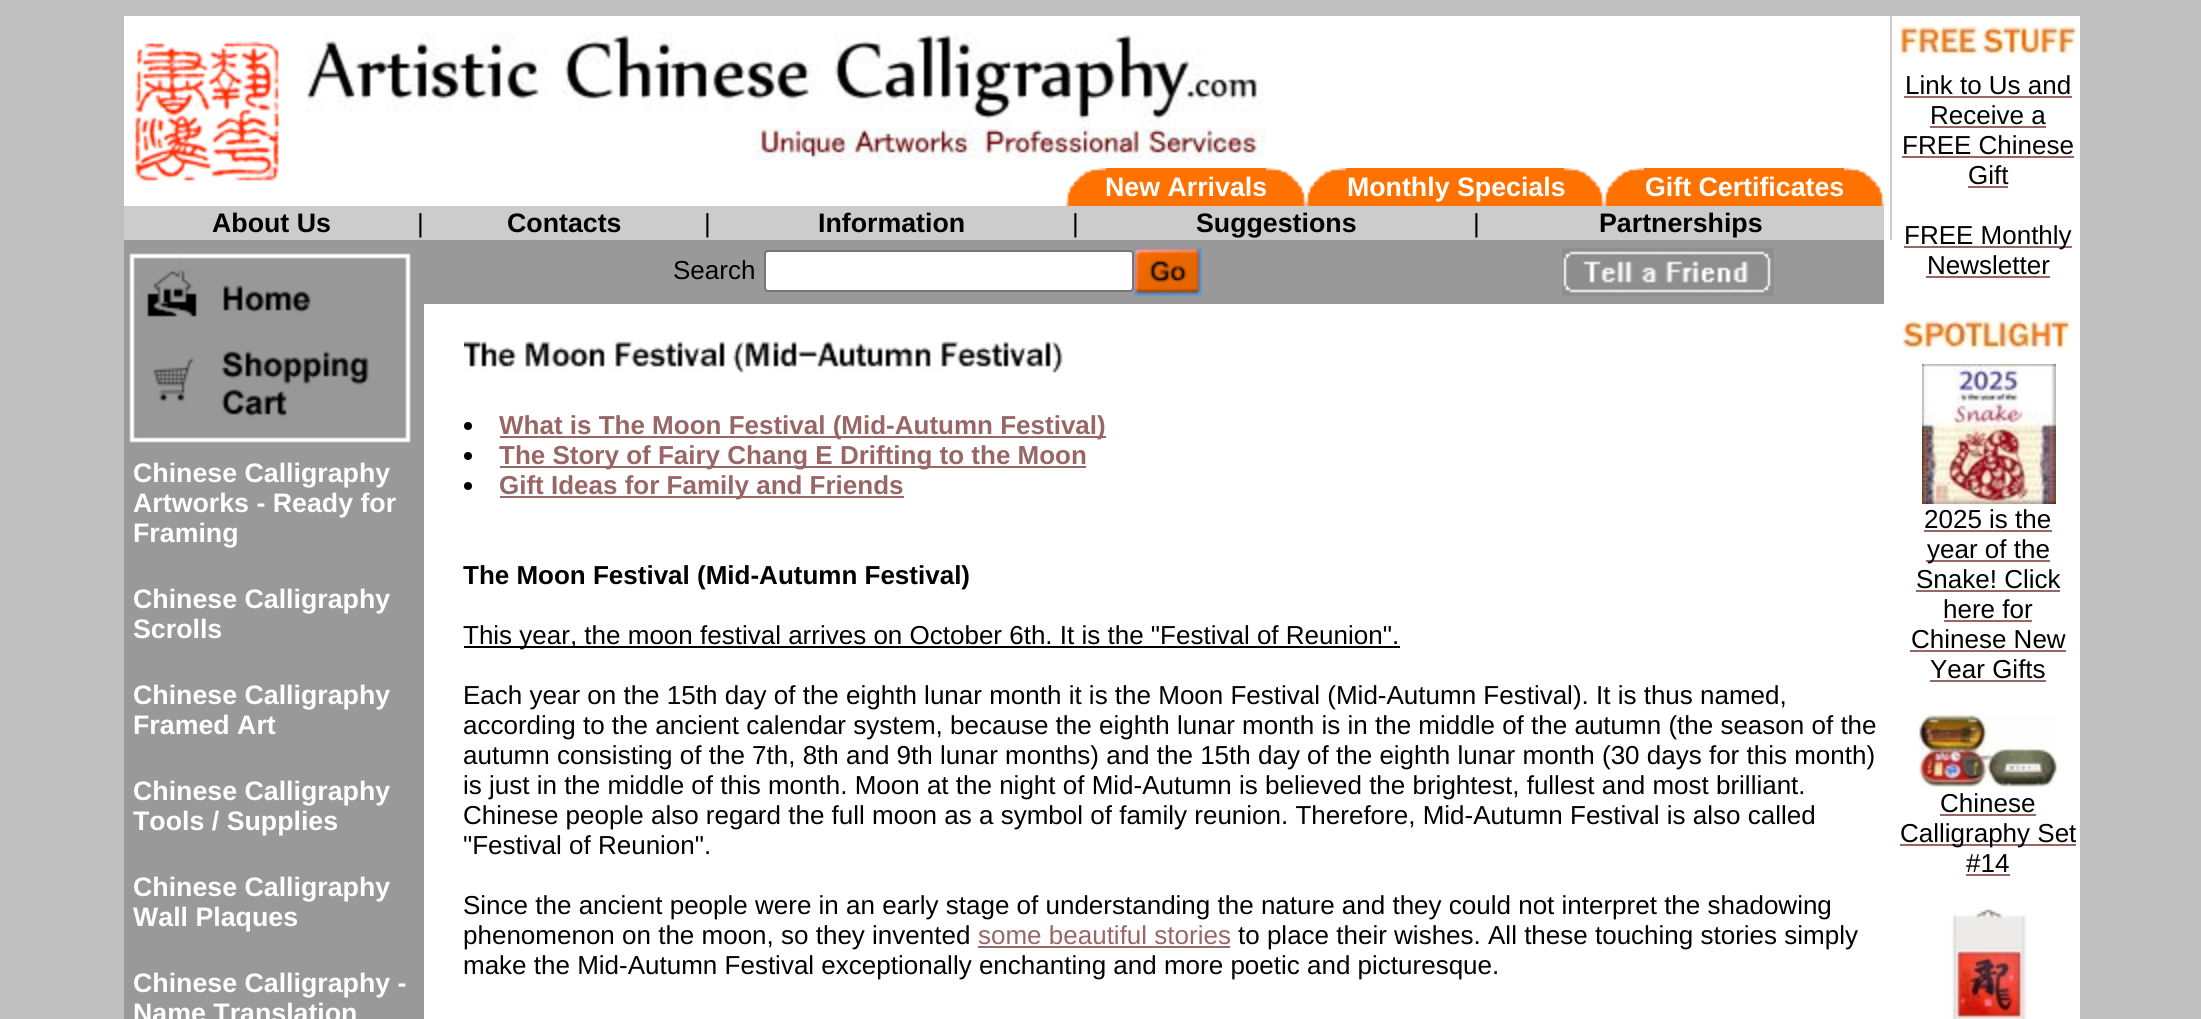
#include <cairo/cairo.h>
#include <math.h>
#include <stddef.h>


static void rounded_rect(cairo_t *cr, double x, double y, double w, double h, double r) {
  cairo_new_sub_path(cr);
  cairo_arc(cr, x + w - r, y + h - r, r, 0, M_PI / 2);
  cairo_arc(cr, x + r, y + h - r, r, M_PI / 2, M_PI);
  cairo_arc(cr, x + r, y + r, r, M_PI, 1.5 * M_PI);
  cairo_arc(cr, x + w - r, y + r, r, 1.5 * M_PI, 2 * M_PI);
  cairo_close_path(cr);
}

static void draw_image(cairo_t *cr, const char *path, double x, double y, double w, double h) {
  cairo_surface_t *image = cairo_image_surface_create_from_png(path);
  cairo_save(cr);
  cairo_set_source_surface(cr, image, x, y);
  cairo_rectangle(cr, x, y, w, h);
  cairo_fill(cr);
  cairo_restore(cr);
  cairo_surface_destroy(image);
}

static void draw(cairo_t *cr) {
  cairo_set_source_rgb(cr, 191 / 255.0, 191 / 255.0, 191 / 255.0);
  cairo_paint(cr);
  cairo_set_source_rgb(cr, 1, 1, 1);
  cairo_rectangle(cr, 124, 16, 1760, 190);
  cairo_fill(cr);
  cairo_rectangle(cr, 1884, 16, 6, 224);
  cairo_fill(cr);
  cairo_set_source_rgb(cr, 204 / 255.0, 204 / 255.0, 204 / 255.0);
  cairo_rectangle(cr, 1890, 16, 2, 224);
  cairo_fill(cr);
  cairo_set_source_rgb(cr, 1, 1, 1);
  cairo_rectangle(cr, 1892, 16, 188, 224);
  cairo_fill(cr);
  draw_image(cr, "images/1.png", 132, 41, 149, 142);
  draw_image(cr, "images/2.png", 306, 32, 960, 129);
  cairo_set_source_rgb(cr, 1, 114 / 255.0, 0);
  cairo_rectangle(cr, 1106, 168, 160, 38);
  cairo_fill(cr);
  draw_image(cr, "images/3.png", 1066, 168, 40, 38);
  draw_image(cr, "images/4.png", 1266, 168, 40, 38);
  cairo_rectangle(cr, 1346, 168, 218, 38);
  cairo_fill(cr);
  draw_image(cr, "images/3.png", 1306, 168, 40, 38);
  draw_image(cr, "images/4.png", 1564, 168, 40, 38);
  cairo_rectangle(cr, 1644, 168, 200, 38);
  cairo_fill(cr);
  draw_image(cr, "images/3.png", 1604, 168, 40, 38);
  draw_image(cr, "images/4.png", 1844, 168, 40, 38);
  cairo_set_source_rgb(cr, 204 / 255.0, 204 / 255.0, 204 / 255.0);
  cairo_rectangle(cr, 124, 206, 1760, 34);
  cairo_fill(cr);
  draw_image(cr, "images/5.png", 1899, 26, 181, 31);
  cairo_set_source_rgb(cr, 153 / 255.0, 102 / 255.0, 102 / 255.0);
  cairo_rectangle(cr, 1904, 96, 168, 2);
  cairo_fill(cr);
  cairo_rectangle(cr, 1930, 126, 116, 2);
  cairo_fill(cr);
  cairo_rectangle(cr, 1902, 156, 172, 2);
  cairo_fill(cr);
  cairo_rectangle(cr, 1968, 186, 40, 2);
  cairo_fill(cr);
  cairo_set_source_rgb(cr, 1, 1, 1);
  cairo_rectangle(cr, 424, 240, 1656, 779);
  cairo_fill(cr);
  cairo_set_source_rgb(cr, 153 / 255.0, 102 / 255.0, 102 / 255.0);
  cairo_rectangle(cr, 1904, 246, 168, 2);
  cairo_fill(cr);
  cairo_rectangle(cr, 1926, 276, 124, 2);
  cairo_fill(cr);
  draw_image(cr, "images/6.png", 1902, 320, 171, 31);
  draw_image(cr, "images/7.png", 1922, 364, 134, 140);
  cairo_rectangle(cr, 1924, 530, 128, 2);
  cairo_fill(cr);
  cairo_rectangle(cr, 1926, 560, 124, 2);
  cairo_fill(cr);
  cairo_rectangle(cr, 1916, 590, 144, 2);
  cairo_fill(cr);
  cairo_rectangle(cr, 1944, 620, 88, 2);
  cairo_fill(cr);
  cairo_rectangle(cr, 1910, 650, 156, 2);
  cairo_fill(cr);
  cairo_rectangle(cr, 1930, 680, 116, 2);
  cairo_fill(cr);
  draw_image(cr, "images/8.png", 1918, 714, 140, 74);
  cairo_rectangle(cr, 1940, 814, 96, 2);
  cairo_fill(cr);
  cairo_rectangle(cr, 1900, 844, 176, 2);
  cairo_fill(cr);
  cairo_rectangle(cr, 1966, 874, 44, 2);
  cairo_fill(cr);
  draw_image(cr, "images/9.png", 1951, 909, 76, 110);
  cairo_set_source_rgb(cr, 153 / 255.0, 153 / 255.0, 153 / 255.0);
  cairo_rectangle(cr, 124, 240, 300, 779);
  cairo_fill(cr);
  draw_image(cr, "images/10.png", 129, 253, 282, 190);
  cairo_rectangle(cr, 424, 240, 1460, 64);
  cairo_fill(cr);
  cairo_set_source_rgb(cr, 1, 1, 1);
  rounded_rect(cr, 765, 251, 368, 40, 3);
  cairo_fill_preserve(cr);
  cairo_set_source_rgb(cr, 118 / 255.0, 118 / 255.0, 118 / 255.0);
  cairo_stroke(cr);
  draw_image(cr, "images/11.png", 1134, 248, 68, 48);
  draw_image(cr, "images/12.png", 1562, 248, 212, 48);
  draw_image(cr, "images/13.png", 464, 341, 599, 32);
  cairo_set_source_rgb(cr, 0, 0, 0);
  cairo_arc(cr, 468, 426, 4, 0, 2 * M_PI);
  cairo_fill(cr);
  cairo_set_source_rgb(cr, 153 / 255.0, 102 / 255.0, 102 / 255.0);
  cairo_rectangle(cr, 500, 436, 606, 2);
  cairo_fill(cr);
  cairo_set_source_rgb(cr, 0, 0, 0);
  cairo_arc(cr, 468, 456, 4, 0, 2 * M_PI);
  cairo_fill(cr);
  cairo_set_source_rgb(cr, 153 / 255.0, 102 / 255.0, 102 / 255.0);
  cairo_rectangle(cr, 500, 466, 586, 2);
  cairo_fill(cr);
  cairo_set_source_rgb(cr, 0, 0, 0);
  cairo_arc(cr, 468, 486, 4, 0, 2 * M_PI);
  cairo_fill(cr);
  cairo_set_source_rgb(cr, 153 / 255.0, 102 / 255.0, 102 / 255.0);
  cairo_rectangle(cr, 500, 496, 404, 2);
  cairo_fill(cr);
  cairo_set_source_rgb(cr, 0, 0, 0);
  cairo_rectangle(cr, 464, 646, 936, 2);
  cairo_fill(cr);
  cairo_set_source_rgb(cr, 153 / 255.0, 102 / 255.0, 102 / 255.0);
  cairo_rectangle(cr, 978, 946, 252, 2);
  cairo_fill(cr);
  cairo_select_font_face(cr, "Liberation Sans", CAIRO_FONT_SLANT_NORMAL, CAIRO_FONT_WEIGHT_BOLD);
  cairo_set_font_size(cr, 26.75);
  cairo_set_source_rgb(cr, 1, 1, 1);
  cairo_move_to(cr, 1105, 196);
  cairo_show_text(cr, "New Arrivals");
  cairo_move_to(cr, 1347, 196);
  cairo_show_text(cr, "Monthly Specials");
  cairo_move_to(cr, 1645, 196);
  cairo_show_text(cr, "Gift Certificates");
  cairo_set_source_rgb(cr, 0, 0, 0);
  cairo_move_to(cr, 212, 232);
  cairo_show_text(cr, "About Us");
  cairo_select_font_face(cr, "Liberation Sans", CAIRO_FONT_SLANT_NORMAL, CAIRO_FONT_WEIGHT_NORMAL);
  cairo_set_font_size(cr, 26);
  cairo_move_to(cr, 417, 232);
  cairo_show_text(cr, "|");
  cairo_select_font_face(cr, "Liberation Sans", CAIRO_FONT_SLANT_NORMAL, CAIRO_FONT_WEIGHT_BOLD);
  cairo_set_font_size(cr, 26.75);
  cairo_move_to(cr, 507, 232);
  cairo_show_text(cr, "Contacts");
  cairo_select_font_face(cr, "Liberation Sans", CAIRO_FONT_SLANT_NORMAL, CAIRO_FONT_WEIGHT_NORMAL);
  cairo_set_font_size(cr, 26);
  cairo_move_to(cr, 704, 232);
  cairo_show_text(cr, "|");
  cairo_select_font_face(cr, "Liberation Sans", CAIRO_FONT_SLANT_NORMAL, CAIRO_FONT_WEIGHT_BOLD);
  cairo_set_font_size(cr, 26.75);
  cairo_move_to(cr, 818, 232);
  cairo_show_text(cr, "Information");
  cairo_select_font_face(cr, "Liberation Sans", CAIRO_FONT_SLANT_NORMAL, CAIRO_FONT_WEIGHT_NORMAL);
  cairo_set_font_size(cr, 26);
  cairo_move_to(cr, 1072, 232);
  cairo_show_text(cr, "|");
  cairo_select_font_face(cr, "Liberation Sans", CAIRO_FONT_SLANT_NORMAL, CAIRO_FONT_WEIGHT_BOLD);
  cairo_set_font_size(cr, 26.75);
  cairo_move_to(cr, 1196, 232);
  cairo_show_text(cr, "Suggestions");
  cairo_select_font_face(cr, "Liberation Sans", CAIRO_FONT_SLANT_NORMAL, CAIRO_FONT_WEIGHT_NORMAL);
  cairo_set_font_size(cr, 26);
  cairo_move_to(cr, 1473, 232);
  cairo_show_text(cr, "|");
  cairo_select_font_face(cr, "Liberation Sans", CAIRO_FONT_SLANT_NORMAL, CAIRO_FONT_WEIGHT_BOLD);
  cairo_set_font_size(cr, 26.75);
  cairo_move_to(cr, 1599, 232);
  cairo_show_text(cr, "Partnerships");
  cairo_select_font_face(cr, "Liberation Sans", CAIRO_FONT_SLANT_NORMAL, CAIRO_FONT_WEIGHT_NORMAL);
  cairo_set_font_size(cr, 26);
  cairo_move_to(cr, 1905, 94);
  cairo_show_text(cr, "Link to Us and");
  cairo_move_to(cr, 1930, 124);
  cairo_show_text(cr, "Receive a");
  cairo_move_to(cr, 1902, 154);
  cairo_show_text(cr, "FREE Chinese");
  cairo_move_to(cr, 1968, 184);
  cairo_show_text(cr, "Gift");
  cairo_move_to(cr, 1904, 244);
  cairo_show_text(cr, "FREE Monthly");
  cairo_move_to(cr, 1927, 274);
  cairo_show_text(cr, "Newsletter");
  cairo_move_to(cr, 1924, 528);
  cairo_show_text(cr, "2025 is the");
  cairo_move_to(cr, 1927, 558);
  cairo_show_text(cr, "year of the");
  cairo_move_to(cr, 1916, 588);
  cairo_show_text(cr, "Snake! Click");
  cairo_move_to(cr, 1943, 618);
  cairo_show_text(cr, "here for");
  cairo_move_to(cr, 1911, 648);
  cairo_show_text(cr, "Chinese New");
  cairo_move_to(cr, 1930, 678);
  cairo_show_text(cr, "Year Gifts");
  cairo_move_to(cr, 1940, 812);
  cairo_show_text(cr, "Chinese");
  cairo_move_to(cr, 1900, 842);
  cairo_show_text(cr, "Calligraphy Set");
  cairo_move_to(cr, 1966, 872);
  cairo_show_text(cr, "#14");
  cairo_select_font_face(cr, "Liberation Sans", CAIRO_FONT_SLANT_NORMAL, CAIRO_FONT_WEIGHT_BOLD);
  cairo_set_font_size(cr, 26.75);
  cairo_set_source_rgb(cr, 1, 1, 1);
  cairo_move_to(cr, 133, 482);
  cairo_show_text(cr, "Chinese Calligraphy");
  cairo_move_to(cr, 133, 512);
  cairo_show_text(cr, "Artworks - Ready for");
  cairo_move_to(cr, 133, 542);
  cairo_show_text(cr, "Framing");
  cairo_move_to(cr, 133, 608);
  cairo_show_text(cr, "Chinese Calligraphy");
  cairo_move_to(cr, 133, 638);
  cairo_show_text(cr, "Scrolls");
  cairo_move_to(cr, 133, 704);
  cairo_show_text(cr, "Chinese Calligraphy");
  cairo_move_to(cr, 133, 734);
  cairo_show_text(cr, "Framed Art");
  cairo_move_to(cr, 133, 800);
  cairo_show_text(cr, "Chinese Calligraphy");
  cairo_move_to(cr, 133, 830);
  cairo_show_text(cr, "Tools / Supplies");
  cairo_move_to(cr, 133, 896);
  cairo_show_text(cr, "Chinese Calligraphy");
  cairo_move_to(cr, 133, 926);
  cairo_show_text(cr, "Wall Plaques");
  cairo_move_to(cr, 133, 992);
  cairo_show_text(cr, "Chinese Calligraphy -");
  cairo_move_to(cr, 133, 1022);
  cairo_show_text(cr, "Name Translation");
  cairo_select_font_face(cr, "Liberation Sans", CAIRO_FONT_SLANT_NORMAL, CAIRO_FONT_WEIGHT_NORMAL);
  cairo_set_font_size(cr, 26);
  cairo_set_source_rgb(cr, 0, 0, 0);
  cairo_move_to(cr, 673, 279);
  cairo_show_text(cr, "Search");
  cairo_select_font_face(cr, "Liberation Sans", CAIRO_FONT_SLANT_NORMAL, CAIRO_FONT_WEIGHT_BOLD);
  cairo_set_source_rgb(cr, 153 / 255.0, 102 / 255.0, 102 / 255.0);
  cairo_move_to(cr, 499, 434);
  cairo_show_text(cr, "What is The Moon Festival (Mid-Autumn Festival)");
  cairo_move_to(cr, 499, 464);
  cairo_show_text(cr, "The Story of Fairy Chang E Drifting to the Moon");
  cairo_move_to(cr, 499, 494);
  cairo_show_text(cr, "Gift Ideas for Family and Friends");
  cairo_set_source_rgb(cr, 0, 0, 0);
  cairo_move_to(cr, 463, 584);
  cairo_show_text(cr, "The Moon Festival (Mid-Autumn Festival)");
  cairo_select_font_face(cr, "Liberation Sans", CAIRO_FONT_SLANT_NORMAL, CAIRO_FONT_WEIGHT_NORMAL);
  cairo_move_to(cr, 463, 644);
  cairo_show_text(cr, "This year, the moon festival arrives on October 6th. It is the \"Festival of Reunion\".");
  cairo_move_to(cr, 463, 704);
  cairo_show_text(cr, "Each year on the 15th day of the eighth lunar month it is the Moon Festival (Mid-Autumn Festival). It is thus named,");
  cairo_move_to(cr, 463, 734);
  cairo_show_text(cr, "according to the ancient calendar system, because the eighth lunar month is in the middle of the autumn (the season of the");
  cairo_move_to(cr, 463, 764);
  cairo_show_text(cr, "autumn consisting of the 7th, 8th and 9th lunar months) and the 15th day of the eighth lunar month (30 days for this month)");
  cairo_move_to(cr, 463, 794);
  cairo_show_text(cr, "is just in the middle of this month. Moon at the night of Mid-Autumn is believed the brightest, fullest and most brilliant.");
  cairo_move_to(cr, 463, 824);
  cairo_show_text(cr, "Chinese people also regard the full moon as a symbol of family reunion. Therefore, Mid-Autumn Festival is also called");
  cairo_move_to(cr, 463, 854);
  cairo_show_text(cr, "\"Festival of Reunion\".");
  cairo_move_to(cr, 463, 914);
  cairo_show_text(cr, "Since the ancient people were in an early stage of understanding the nature and they could not interpret the shadowing");
  cairo_move_to(cr, 463, 944);
  cairo_show_text(cr, "phenomenon on the moon, so they invented");
  cairo_set_source_rgb(cr, 153 / 255.0, 102 / 255.0, 102 / 255.0);
  cairo_move_to(cr, 978, 944);
  cairo_show_text(cr, "some beautiful stories");
  cairo_set_source_rgb(cr, 0, 0, 0);
  cairo_move_to(cr, 1238, 944);
  cairo_show_text(cr, "to place their wishes. All these touching stories simply");
  cairo_move_to(cr, 463, 974);
  cairo_show_text(cr, "make the Mid-Autumn Festival exceptionally enchanting and more poetic and picturesque.");
}

int main(void) {
  cairo_surface_t *surface = cairo_image_surface_create(CAIRO_FORMAT_RGB24, 2201, 1019);
  cairo_t *cr = cairo_create(surface);
  cairo_font_options_t *options = cairo_font_options_create();
  cairo_font_options_set_hint_metrics(options, CAIRO_HINT_METRICS_OFF);
  cairo_font_options_set_hint_style(options, CAIRO_HINT_STYLE_NONE);
  cairo_set_font_options(cr, options);
  cairo_set_miter_limit(cr, 4);
  draw(cr);
  cairo_surface_write_to_png(surface, "out.png");
  cairo_font_options_destroy(options);
  cairo_destroy(cr);
  cairo_surface_destroy(surface);
  return 0;
}
